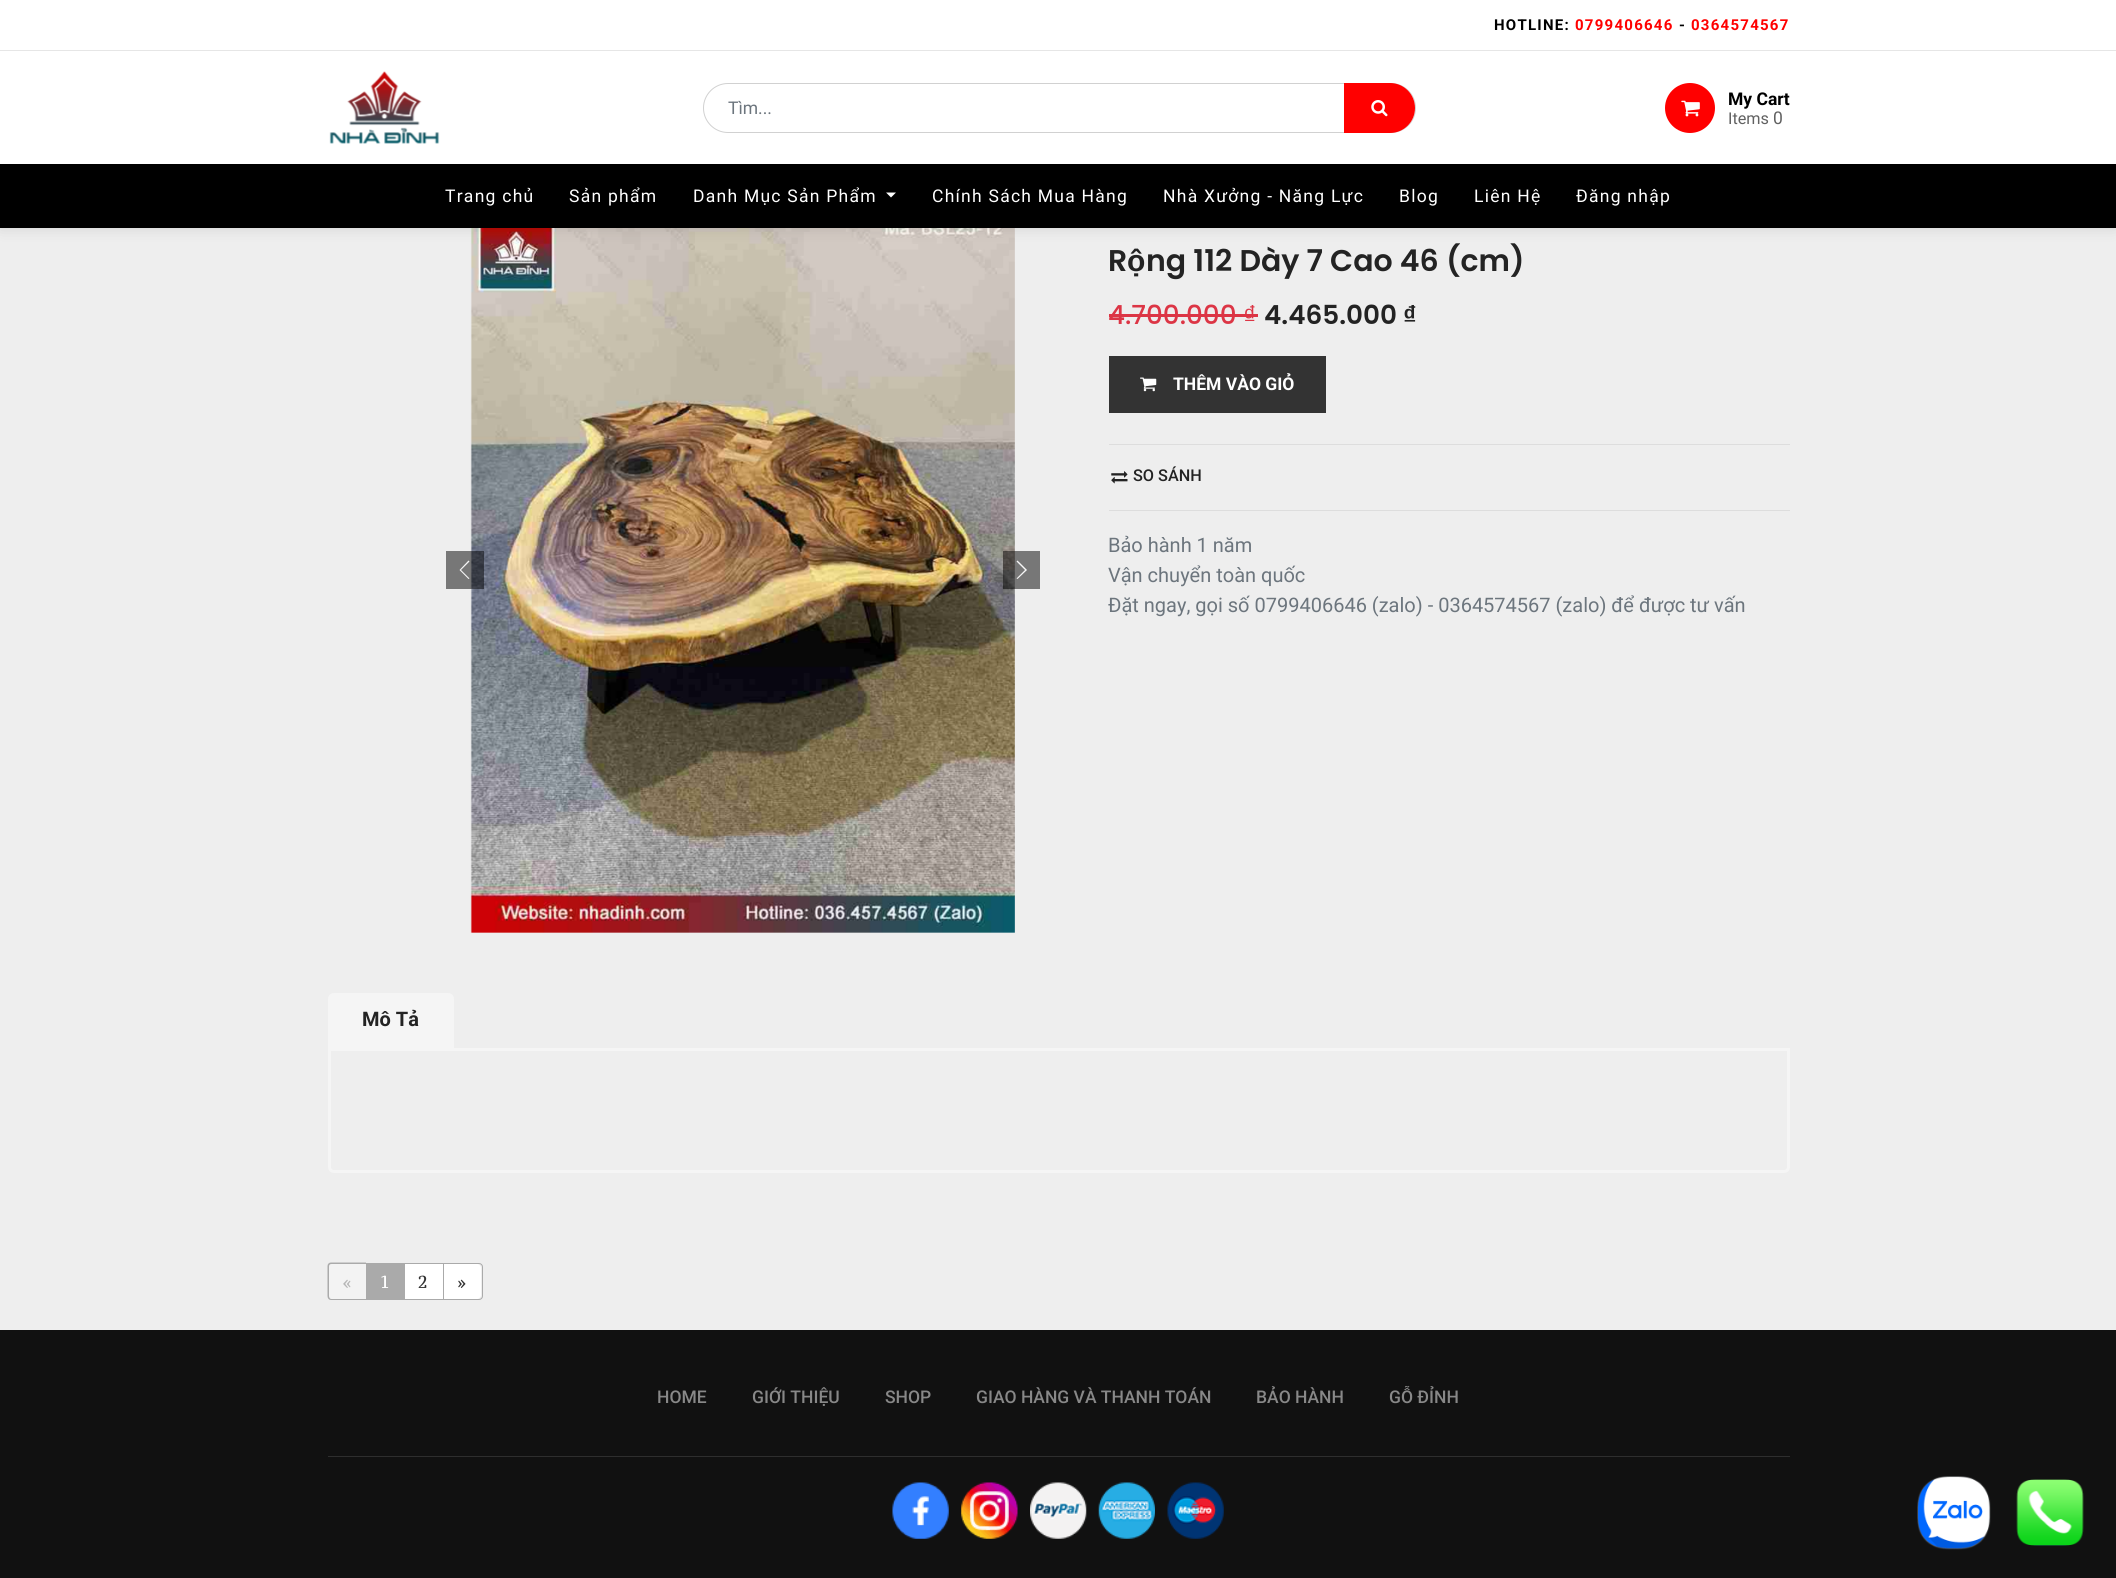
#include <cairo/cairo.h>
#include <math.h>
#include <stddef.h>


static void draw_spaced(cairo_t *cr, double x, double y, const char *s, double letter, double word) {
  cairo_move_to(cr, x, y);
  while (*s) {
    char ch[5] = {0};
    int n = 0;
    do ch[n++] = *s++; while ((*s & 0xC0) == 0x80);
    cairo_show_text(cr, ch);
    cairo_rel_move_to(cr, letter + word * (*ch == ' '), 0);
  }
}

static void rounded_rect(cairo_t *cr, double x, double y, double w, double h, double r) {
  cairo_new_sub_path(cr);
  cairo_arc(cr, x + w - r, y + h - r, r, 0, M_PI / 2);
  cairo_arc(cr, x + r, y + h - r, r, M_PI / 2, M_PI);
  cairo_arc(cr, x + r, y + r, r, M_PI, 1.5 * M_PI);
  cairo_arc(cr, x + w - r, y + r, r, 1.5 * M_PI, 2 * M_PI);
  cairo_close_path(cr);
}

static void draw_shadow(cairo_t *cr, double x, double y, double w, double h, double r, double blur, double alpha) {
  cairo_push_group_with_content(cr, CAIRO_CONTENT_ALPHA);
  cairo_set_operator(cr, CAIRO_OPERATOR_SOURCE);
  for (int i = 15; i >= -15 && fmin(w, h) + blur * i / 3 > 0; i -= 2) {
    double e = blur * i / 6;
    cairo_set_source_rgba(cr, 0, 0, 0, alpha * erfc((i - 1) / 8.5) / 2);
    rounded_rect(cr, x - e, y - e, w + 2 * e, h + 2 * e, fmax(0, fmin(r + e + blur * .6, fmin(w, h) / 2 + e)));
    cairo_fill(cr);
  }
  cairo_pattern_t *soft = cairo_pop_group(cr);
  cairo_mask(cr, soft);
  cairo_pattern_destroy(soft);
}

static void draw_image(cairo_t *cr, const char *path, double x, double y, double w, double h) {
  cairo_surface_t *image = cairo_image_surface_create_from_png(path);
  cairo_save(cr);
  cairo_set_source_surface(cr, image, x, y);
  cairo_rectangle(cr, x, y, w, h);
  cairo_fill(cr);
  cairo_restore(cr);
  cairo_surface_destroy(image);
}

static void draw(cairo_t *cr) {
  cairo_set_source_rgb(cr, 238 / 255.0, 238 / 255.0, 238 / 255.0);
  cairo_paint(cr);
  draw_image(cr, "images/4.png", 470, 228, 545, 705);
  cairo_set_source_rgb(cr, 0, 0, 0);
  draw_shadow(cr, 0, 0, 2116, 228, 0, 7.5, 0.12);
  cairo_set_source_rgb(cr, 1, 1, 1);
  cairo_rectangle(cr, 0, 0, 2116, 164);
  cairo_fill(cr);
  cairo_set_source_rgb(cr, 230 / 255.0, 230 / 255.0, 230 / 255.0);
  cairo_rectangle(cr, 0, 50, 2116, 1);
  cairo_fill(cr);
  draw_image(cr, "images/1.png", 329, 71, 111, 73);
  rounded_rect(cr, 703.5, 83.5, 712, 49, 24.5);
  cairo_set_source_rgb(cr, 209 / 255.0, 209 / 255.0, 209 / 255.0);
  cairo_set_line_width(cr, 1);
  cairo_stroke(cr);
  cairo_set_source_rgb(cr, 1, 0, 0);
  cairo_new_path(cr);
  cairo_move_to(cr, 1345.5, 84.5);
  cairo_line_to(cr, 1390, 84.5);
  cairo_curve_to(cr, 1403, 84.5, 1413.5, 95, 1413.5, 108);
  cairo_curve_to(cr, 1413.5, 121, 1403, 131.5, 1390, 131.5);
  cairo_line_to(cr, 1345.5, 131.5);
  cairo_close_path(cr);
  cairo_fill_preserve(cr);
  cairo_set_line_width(cr, 3);
  cairo_stroke(cr);
  draw_image(cr, "images/2.png", 1371, 100, 17, 17);
  cairo_arc(cr, 1690, 108, 25, 0, 2 * M_PI);
  cairo_fill(cr);
  draw_image(cr, "images/3.png", 1681, 100, 19, 17);
  cairo_set_source_rgb(cr, 0, 0, 0);
  cairo_rectangle(cr, 0, 164, 2116, 64);
  cairo_fill(cr);
  cairo_set_source_rgb(cr, 1, 1, 1);
  cairo_new_path(cr);
  cairo_move_to(cr, 886, 192.5);
  cairo_line_to(cr, 896, 192.5);
  cairo_line_to(cr, 891, 197.5);
  cairo_close_path(cr);
  cairo_fill(cr);
  cairo_set_source_rgba(cr, 0, 0, 0, 0.5);
  cairo_rectangle(cr, 446, 551, 38, 38);
  cairo_fill(cr);
  cairo_set_source_rgb(cr, 247 / 255.0, 247 / 255.0, 247 / 255.0);
  cairo_new_path(cr);
  cairo_move_to(cr, 461, 570);
  cairo_line_to(cr, 469.5, 578.5);
  cairo_line_to(cr, 468.5, 579);
  cairo_line_to(cr, 459.5, 570);
  cairo_line_to(cr, 468.5, 560.5);
  cairo_line_to(cr, 469.5, 561.5);
  cairo_close_path(cr);
  cairo_fill(cr);
  cairo_set_source_rgba(cr, 0, 0, 0, 0.5);
  cairo_rectangle(cr, 1003, 551, 37, 38);
  cairo_fill(cr);
  cairo_set_source_rgb(cr, 247 / 255.0, 247 / 255.0, 247 / 255.0);
  cairo_new_path(cr);
  cairo_move_to(cr, 1027, 570);
  cairo_line_to(cr, 1017.5, 579);
  cairo_line_to(cr, 1016.5, 578.5);
  cairo_line_to(cr, 1025, 570);
  cairo_line_to(cr, 1016.5, 561.5);
  cairo_line_to(cr, 1017.5, 560.5);
  cairo_close_path(cr);
  cairo_fill(cr);
  cairo_set_source_rgb(cr, 220 / 255.0, 53 / 255.0, 69 / 255.0);
  cairo_rectangle(cr, 1109, 314, 127, 3);
  cairo_fill(cr);
  cairo_rectangle(cr, 1236, 314, 22, 3);
  cairo_fill(cr);
  cairo_set_source_rgb(cr, 51 / 255.0, 51 / 255.0, 51 / 255.0);
  cairo_rectangle(cr, 1109, 356, 217, 57);
  cairo_fill(cr);
  draw_image(cr, "images/5.png", 1140, 377, 17, 15);
  cairo_set_source_rgb(cr, 221 / 255.0, 221 / 255.0, 221 / 255.0);
  cairo_rectangle(cr, 1109, 444, 681, 1);
  cairo_fill(cr);
  draw_image(cr, "images/6.png", 1111, 471, 17, 13);
  cairo_rectangle(cr, 1109, 510, 681, 1);
  cairo_fill(cr);
  cairo_set_source_rgb(cr, 245 / 255.0, 245 / 255.0, 245 / 255.0);
  cairo_new_path(cr);
  cairo_move_to(cr, 334, 993);
  cairo_line_to(cr, 448, 993);
  cairo_curve_to(cr, 451.5, 993, 454, 995.5, 454, 999);
  cairo_line_to(cr, 454, 1048);
  cairo_line_to(cr, 328, 1048);
  cairo_line_to(cr, 328, 999);
  cairo_curve_to(cr, 328, 995.5, 330.5, 993, 334, 993);
  cairo_close_path(cr);
  cairo_fill(cr);
  cairo_new_path(cr);
  cairo_move_to(cr, 329.5, 1049.5);
  cairo_line_to(cr, 1788.5, 1049.5);
  cairo_line_to(cr, 1788.5, 1167);
  cairo_curve_to(cr, 1788.5, 1169.5, 1786.5, 1171.5, 1784, 1171.5);
  cairo_line_to(cr, 334, 1171.5);
  cairo_curve_to(cr, 331.5, 1171.5, 329.5, 1169.5, 329.5, 1167);
  cairo_close_path(cr);
  cairo_stroke(cr);
  cairo_set_source_rgb(cr, 170 / 255.0, 170 / 255.0, 170 / 255.0);
  cairo_set_fill_rule(cr, CAIRO_FILL_RULE_EVEN_ODD);
  cairo_new_path(cr);
  cairo_move_to(cr, 331, 1262.5);
  cairo_line_to(cr, 366, 1262.5);
  cairo_line_to(cr, 366, 1300);
  cairo_line_to(cr, 331, 1300);
  cairo_curve_to(cr, 329, 1300, 327.5, 1298.5, 327.5, 1296);
  cairo_line_to(cr, 327.5, 1266);
  cairo_curve_to(cr, 327.5, 1264, 329, 1262.5, 331, 1262.5);
  cairo_close_path(cr);
  cairo_move_to(cr, 331, 1264);
  cairo_line_to(cr, 366, 1264);
  cairo_line_to(cr, 366, 1299);
  cairo_line_to(cr, 331, 1299);
  cairo_curve_to(cr, 330, 1299, 329, 1297.5, 329, 1296);
  cairo_line_to(cr, 329, 1266);
  cairo_curve_to(cr, 329, 1265, 330, 1264, 331, 1264);
  cairo_close_path(cr);
  cairo_fill(cr);
  cairo_set_source_rgba(cr, 1, 1, 1, 0.3);
  cairo_new_path(cr);
  cairo_move_to(cr, 333, 1264);
  cairo_line_to(cr, 366, 1264);
  cairo_line_to(cr, 366, 1299);
  cairo_line_to(cr, 333, 1299);
  cairo_curve_to(cr, 331, 1299, 329, 1297, 329, 1295);
  cairo_line_to(cr, 329, 1268);
  cairo_curve_to(cr, 329, 1266, 331, 1264, 333, 1264);
  cairo_close_path(cr);
  cairo_fill(cr);
  cairo_set_source_rgb(cr, 170 / 255.0, 170 / 255.0, 170 / 255.0);
  cairo_rectangle(cr, 366, 1263, 38, 37);
  cairo_fill(cr);
  cairo_rectangle(cr, 404, 1263, 39, 1);
  cairo_fill(cr);
  cairo_rectangle(cr, 404, 1299, 39, 1);
  cairo_fill(cr);
  cairo_rectangle(cr, 404, 1263, 1, 37);
  cairo_fill(cr);
  cairo_set_source_rgb(cr, 1, 1, 1);
  cairo_rectangle(cr, 405, 1264, 38, 35);
  cairo_fill(cr);
  cairo_new_path(cr);
  cairo_move_to(cr, 443.5, 1263.5);
  cairo_line_to(cr, 479, 1263.5);
  cairo_curve_to(cr, 481, 1263.5, 482.5, 1265, 482.5, 1267);
  cairo_line_to(cr, 482.5, 1296);
  cairo_curve_to(cr, 482.5, 1298, 481, 1299.5, 479, 1299.5);
  cairo_line_to(cr, 443.5, 1299.5);
  cairo_close_path(cr);
  cairo_set_source_rgb(cr, 170 / 255.0, 170 / 255.0, 170 / 255.0);
  cairo_set_line_width(cr, 1);
  cairo_stroke(cr);
  cairo_set_source_rgb(cr, 1, 1, 1);
  cairo_new_path(cr);
  cairo_move_to(cr, 444, 1264);
  cairo_line_to(cr, 477, 1264);
  cairo_curve_to(cr, 479, 1264, 481, 1266, 481, 1268);
  cairo_line_to(cr, 481, 1295);
  cairo_curve_to(cr, 481, 1297, 479, 1299, 477, 1299);
  cairo_line_to(cr, 444, 1299);
  cairo_close_path(cr);
  cairo_fill(cr);
  cairo_set_source_rgb(cr, 17 / 255.0, 17 / 255.0, 17 / 255.0);
  cairo_rectangle(cr, 0, 1330, 2116, 248);
  cairo_fill(cr);
  cairo_set_source_rgb(cr, 46 / 255.0, 46 / 255.0, 46 / 255.0);
  cairo_rectangle(cr, 328, 1456, 1462, 1);
  cairo_fill(cr);
  draw_image(cr, "images/7.png", 892, 1482, 57, 57);
  draw_image(cr, "images/8.png", 961, 1482, 57, 57);
  draw_image(cr, "images/9.png", 1030, 1482, 57, 57);
  draw_image(cr, "images/10.png", 1098, 1482, 57, 57);
  draw_image(cr, "images/11.png", 1167, 1482, 57, 57);
  draw_image(cr, "images/12.png", 1917, 1476, 74, 74);
  draw_image(cr, "images/13.png", 2016, 1479, 68, 67);
  cairo_select_font_face(cr, "Roboto", CAIRO_FONT_SLANT_NORMAL, CAIRO_FONT_WEIGHT_BOLD);
  cairo_set_font_size(cr, 15);
  cairo_set_source_rgb(cr, 0, 0, 0);
  draw_spaced(cr, 1494, 30, "HOTLINE:", 1.25, 0);
  cairo_set_source_rgb(cr, 1, 0, 0);
  draw_spaced(cr, 1575, 30, "0799406646", 1.25, 0);
  cairo_set_source_rgb(cr, 0, 0, 0);
  draw_spaced(cr, 1679, 30, "-", 1.25, 0);
  cairo_set_source_rgb(cr, 1, 0, 0);
  draw_spaced(cr, 1691, 30, "0364574567", 1.25, 0);
  cairo_select_font_face(cr, "Roboto", CAIRO_FONT_SLANT_NORMAL, CAIRO_FONT_WEIGHT_NORMAL);
  cairo_set_font_size(cr, 17.5);
  cairo_set_source_rgb(cr, 108 / 255.0, 117 / 255.0, 125 / 255.0);
  cairo_move_to(cr, 728, 114);
  cairo_show_text(cr, "Tìm...");
  cairo_select_font_face(cr, "Roboto", CAIRO_FONT_SLANT_NORMAL, CAIRO_FONT_WEIGHT_BOLD);
  cairo_set_source_rgb(cr, 0, 0, 0);
  cairo_move_to(cr, 1728, 105);
  cairo_show_text(cr, "My Cart");
  cairo_select_font_face(cr, "Roboto", CAIRO_FONT_SLANT_NORMAL, CAIRO_FONT_WEIGHT_NORMAL);
  cairo_set_font_size(cr, 16.25);
  cairo_set_source_rgb(cr, 97 / 255.0, 97 / 255.0, 97 / 255.0);
  cairo_move_to(cr, 1728, 124);
  cairo_show_text(cr, "Items");
  cairo_set_font_size(cr, 17.5);
  cairo_move_to(cr, 1773, 124);
  cairo_show_text(cr, "0");
  cairo_set_source_rgb(cr, 1, 1, 1);
  draw_spaced(cr, 445, 202, "Trang chủ", 1.25, 0);
  draw_spaced(cr, 569, 202, "Sản phẩm", 1.25, 0);
  draw_spaced(cr, 693, 202, "Danh Mục Sản Phẩm", 1.25, 0);
  draw_spaced(cr, 932, 202, "Chính Sách Mua Hàng", 1.25, 0);
  draw_spaced(cr, 1163, 202, "Nhà Xưởng - Năng Lực", 1.25, 0);
  draw_spaced(cr, 1399, 202, "Blog", 1.25, 0);
  draw_spaced(cr, 1474, 202, "Liên Hệ", 1.25, 0);
  draw_spaced(cr, 1576, 202, "Đăng nhập", 1.25, 0);
  cairo_select_font_face(cr, "Poppins SemiBold", CAIRO_FONT_SLANT_NORMAL, CAIRO_FONT_WEIGHT_NORMAL);
  cairo_set_font_size(cr, 30);
  cairo_set_source_rgb(cr, 35 / 255.0, 35 / 255.0, 35 / 255.0);
  cairo_move_to(cr, 1108, 271);
  cairo_show_text(cr, "R");
  cairo_select_font_face(cr, "Liberation Sans", CAIRO_FONT_SLANT_NORMAL, CAIRO_FONT_WEIGHT_BOLD);
  cairo_move_to(cr, 1127, 271);
  cairo_show_text(cr, "ộ");
  cairo_select_font_face(cr, "Poppins SemiBold", CAIRO_FONT_SLANT_NORMAL, CAIRO_FONT_WEIGHT_NORMAL);
  cairo_move_to(cr, 1146, 271);
  cairo_show_text(cr, "ng 112 Dày 7 Cao 46 (cm)");
  cairo_select_font_face(cr, "Poppins Medium", CAIRO_FONT_SLANT_NORMAL, CAIRO_FONT_WEIGHT_NORMAL);
  cairo_set_font_size(cr, 26.25);
  cairo_set_source_rgb(cr, 220 / 255.0, 53 / 255.0, 69 / 255.0);
  cairo_move_to(cr, 1108, 324);
  cairo_show_text(cr, "4.700.000");
  cairo_select_font_face(cr, "Liberation Sans", CAIRO_FONT_SLANT_NORMAL, CAIRO_FONT_WEIGHT_NORMAL);
  cairo_move_to(cr, 1243, 324);
  cairo_show_text(cr, "₫");
  cairo_select_font_face(cr, "Poppins SemiBold", CAIRO_FONT_SLANT_NORMAL, CAIRO_FONT_WEIGHT_NORMAL);
  cairo_set_source_rgb(cr, 35 / 255.0, 35 / 255.0, 35 / 255.0);
  cairo_move_to(cr, 1264, 324);
  cairo_show_text(cr, "4.465.000");
  cairo_select_font_face(cr, "Liberation Sans", CAIRO_FONT_SLANT_NORMAL, CAIRO_FONT_WEIGHT_BOLD);
  cairo_move_to(cr, 1403, 324);
  cairo_show_text(cr, "₫");
  cairo_select_font_face(cr, "Roboto", CAIRO_FONT_SLANT_NORMAL, CAIRO_FONT_WEIGHT_BOLD);
  cairo_set_font_size(cr, 17.5);
  cairo_set_source_rgb(cr, 1, 1, 1);
  cairo_move_to(cr, 1173, 390);
  cairo_show_text(cr, "THÊM VÀO GIỎ");
  cairo_select_font_face(cr, "Roboto Medium", CAIRO_FONT_SLANT_NORMAL, CAIRO_FONT_WEIGHT_NORMAL);
  cairo_set_font_size(cr, 16.25);
  cairo_set_source_rgb(cr, 35 / 255.0, 35 / 255.0, 35 / 255.0);
  cairo_move_to(cr, 1133, 481);
  cairo_show_text(cr, "SO SÁNH");
  cairo_select_font_face(cr, "Roboto", CAIRO_FONT_SLANT_NORMAL, CAIRO_FONT_WEIGHT_NORMAL);
  cairo_set_font_size(cr, 20);
  cairo_set_source_rgb(cr, 108 / 255.0, 117 / 255.0, 125 / 255.0);
  cairo_move_to(cr, 1108, 552);
  cairo_show_text(cr, "Bảo hành 1 năm");
  cairo_move_to(cr, 1108, 582);
  cairo_show_text(cr, "Vận chuyển toàn quốc");
  cairo_move_to(cr, 1108, 612);
  cairo_show_text(cr, "Đặt ngay, gọi số 0799406646 (zalo) - 0364574567 (zalo) để được tư vấn");
  cairo_select_font_face(cr, "Roboto", CAIRO_FONT_SLANT_NORMAL, CAIRO_FONT_WEIGHT_BOLD);
  cairo_set_source_rgb(cr, 35 / 255.0, 35 / 255.0, 35 / 255.0);
  cairo_move_to(cr, 362, 1026);
  cairo_show_text(cr, "Mô Tả");
  cairo_select_font_face(cr, "Marmelad", CAIRO_FONT_SLANT_NORMAL, CAIRO_FONT_WEIGHT_NORMAL);
  cairo_set_font_size(cr, 17.5);
  cairo_set_source_rgb(cr, 182 / 255.0, 182 / 255.0, 182 / 255.0);
  cairo_move_to(cr, 342, 1288);
  cairo_show_text(cr, "«");
  cairo_set_source_rgb(cr, 1, 1, 1);
  cairo_move_to(cr, 380, 1288);
  cairo_show_text(cr, "1");
  cairo_set_source_rgb(cr, 51 / 255.0, 51 / 255.0, 51 / 255.0);
  cairo_move_to(cr, 418, 1288);
  cairo_show_text(cr, "2");
  cairo_move_to(cr, 457, 1288);
  cairo_show_text(cr, "»");
  cairo_select_font_face(cr, "Roboto Medium", CAIRO_FONT_SLANT_NORMAL, CAIRO_FONT_WEIGHT_NORMAL);
  cairo_set_source_rgb(cr, 136 / 255.0, 136 / 255.0, 136 / 255.0);
  cairo_move_to(cr, 657, 1403);
  cairo_show_text(cr, "HOME");
  cairo_move_to(cr, 752, 1403);
  cairo_show_text(cr, "GIỚI THIỆU");
  cairo_move_to(cr, 885, 1403);
  cairo_show_text(cr, "SHOP");
  cairo_move_to(cr, 976, 1403);
  cairo_show_text(cr, "GIAO HÀNG VÀ THANH TOÁN");
  cairo_move_to(cr, 1256, 1403);
  cairo_show_text(cr, "BẢO HÀNH");
  cairo_move_to(cr, 1389, 1403);
  cairo_show_text(cr, "GỖ ĐỈNH");
}

int main(void) {
  cairo_surface_t *surface = cairo_image_surface_create(CAIRO_FORMAT_RGB24, 2116, 1578);
  cairo_t *cr = cairo_create(surface);
  cairo_font_options_t *options = cairo_font_options_create();
  cairo_font_options_set_hint_metrics(options, CAIRO_HINT_METRICS_OFF);
  cairo_font_options_set_hint_style(options, CAIRO_HINT_STYLE_NONE);
  cairo_set_font_options(cr, options);
  cairo_set_miter_limit(cr, 4);
  draw(cr);
  cairo_surface_write_to_png(surface, "out.png");
  cairo_font_options_destroy(options);
  cairo_destroy(cr);
  cairo_surface_destroy(surface);
  return 0;
}
